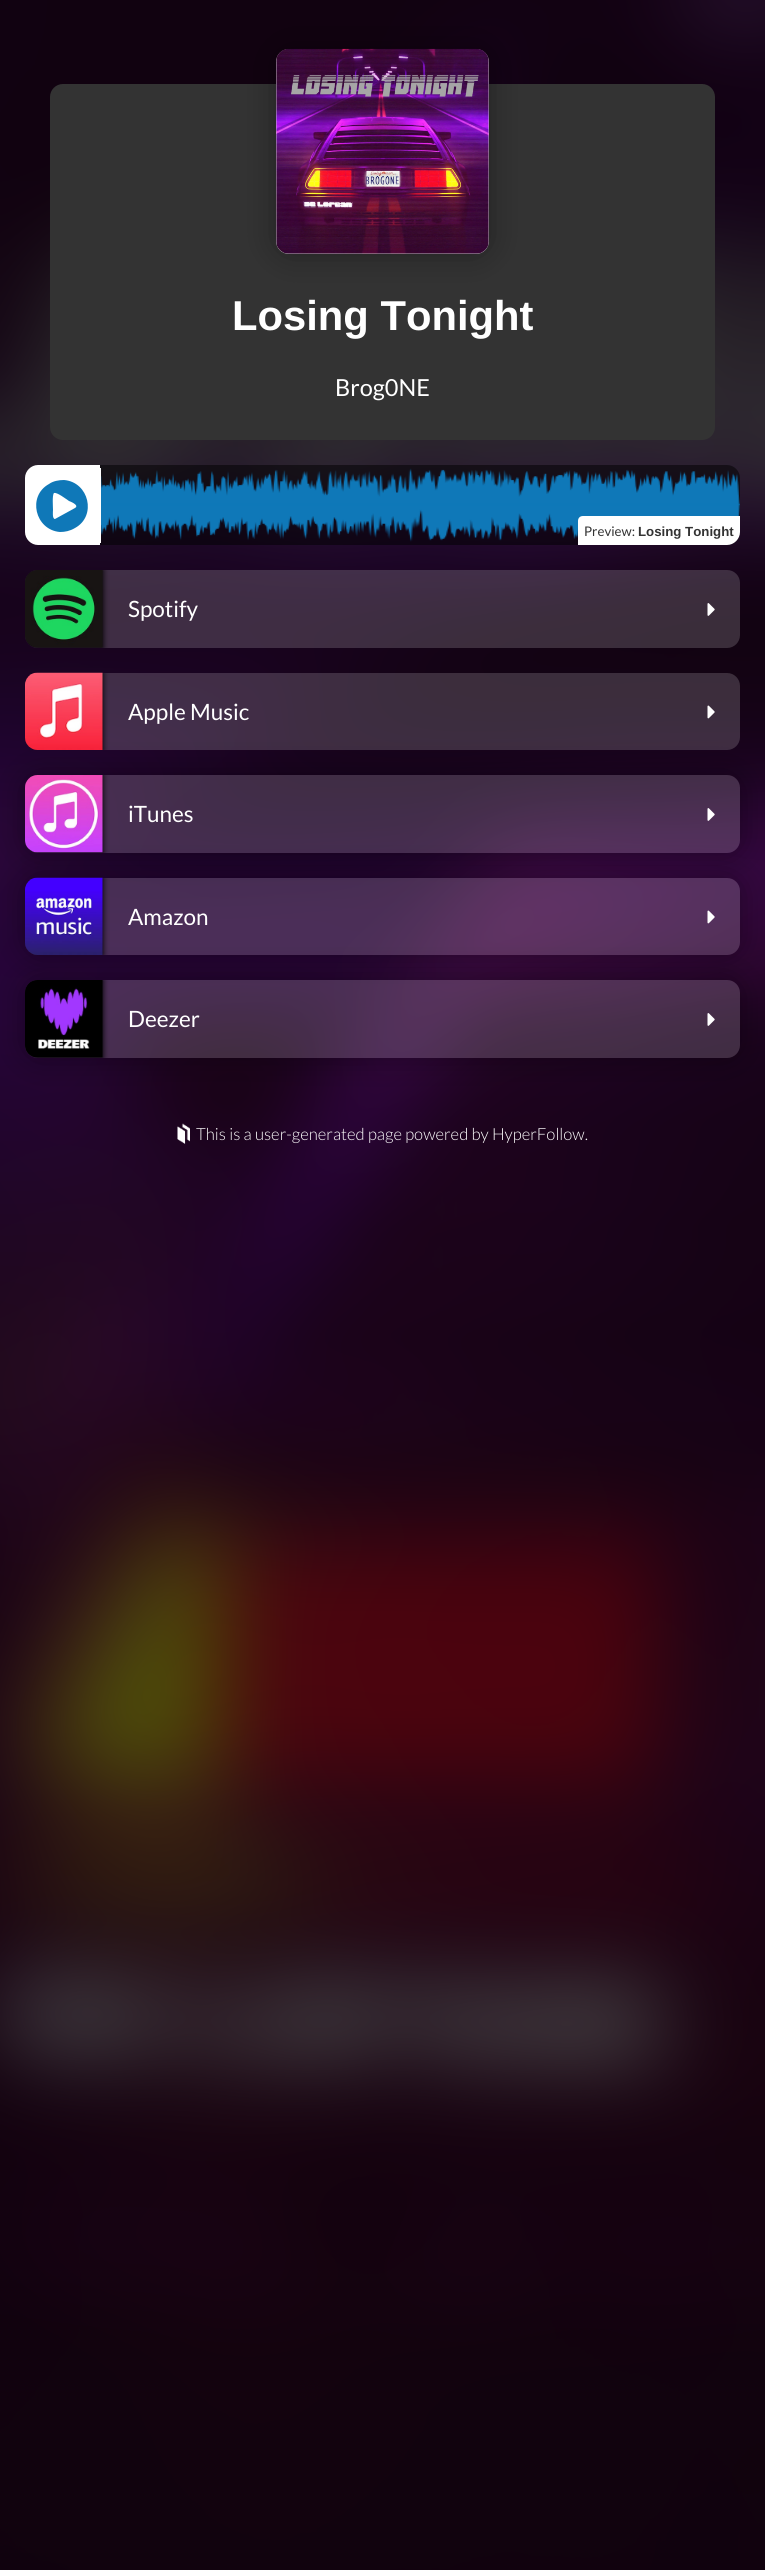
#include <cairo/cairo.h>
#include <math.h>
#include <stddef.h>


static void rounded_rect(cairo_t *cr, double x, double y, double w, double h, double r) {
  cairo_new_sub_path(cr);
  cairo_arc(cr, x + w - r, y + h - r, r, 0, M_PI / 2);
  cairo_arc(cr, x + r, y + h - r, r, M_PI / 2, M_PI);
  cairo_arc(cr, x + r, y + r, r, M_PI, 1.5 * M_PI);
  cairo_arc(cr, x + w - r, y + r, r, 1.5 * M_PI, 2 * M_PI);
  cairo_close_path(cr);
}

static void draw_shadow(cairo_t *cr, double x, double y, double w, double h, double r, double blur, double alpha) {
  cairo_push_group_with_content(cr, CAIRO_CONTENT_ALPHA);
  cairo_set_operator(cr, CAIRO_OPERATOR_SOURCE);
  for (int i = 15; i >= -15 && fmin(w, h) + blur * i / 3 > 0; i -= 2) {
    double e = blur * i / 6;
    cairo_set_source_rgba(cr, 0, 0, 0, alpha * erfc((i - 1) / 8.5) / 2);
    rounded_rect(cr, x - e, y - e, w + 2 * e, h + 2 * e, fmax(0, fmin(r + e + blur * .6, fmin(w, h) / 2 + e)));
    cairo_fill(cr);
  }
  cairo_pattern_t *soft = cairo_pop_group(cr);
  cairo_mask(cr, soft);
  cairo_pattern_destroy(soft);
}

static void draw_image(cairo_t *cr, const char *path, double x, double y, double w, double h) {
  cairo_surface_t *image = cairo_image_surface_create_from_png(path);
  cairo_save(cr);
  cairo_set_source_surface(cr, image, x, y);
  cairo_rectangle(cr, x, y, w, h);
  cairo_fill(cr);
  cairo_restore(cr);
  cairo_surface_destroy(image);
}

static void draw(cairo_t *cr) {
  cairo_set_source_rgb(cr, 0, 0, 0);
  cairo_paint(cr);
  draw_image(cr, "images/1.png", 0, 0, 765, 2570);
  cairo_set_source_rgb(cr, 51 / 255.0, 51 / 255.0, 51 / 255.0);
  rounded_rect(cr, 50, 84, 665, 356, 13);
  cairo_fill(cr);
  cairo_set_source_rgb(cr, 0, 0, 0);
  draw_shadow(cr, 276, 49, 213, 205, 13, 15.5, 0.35);
  cairo_set_source_rgb(cr, 204 / 255.0, 204 / 255.0, 204 / 255.0);
  rounded_rect(cr, 276, 49, 213, 205, 13);
  cairo_fill(cr);
  draw_image(cr, "images/2.png", 276, 48, 213, 206);
  cairo_set_source_rgb(cr, 1, 1, 1);
  cairo_new_path(cr);
  cairo_move_to(cr, 38, 465);
  cairo_line_to(cr, 100, 465);
  cairo_line_to(cr, 100, 545);
  cairo_line_to(cr, 38, 545);
  cairo_curve_to(cr, 31, 545, 25, 539, 25, 532);
  cairo_line_to(cr, 25, 478);
  cairo_curve_to(cr, 25, 471, 31, 465, 38, 465);
  cairo_close_path(cr);
  cairo_fill(cr);
  cairo_set_source_rgb(cr, 15 / 255.0, 120 / 255.0, 184 / 255.0);
  cairo_new_path(cr);
  cairo_move_to(cr, 49, 484);
  cairo_curve_to(cr, 53, 481, 59, 480, 64, 480);
  cairo_curve_to(cr, 89, 482, 97, 516, 75, 528);
  cairo_curve_to(cr, 70, 531, 65, 532, 60, 532);
  cairo_curve_to(cr, 35, 530, 27, 496, 49, 484);
  cairo_close_path(cr);
  cairo_move_to(cr, 75, 508);
  cairo_curve_to(cr, 80, 505, 69, 501, 69, 501);
  cairo_curve_to(cr, 66, 499, 57, 492, 54, 493);
  cairo_curve_to(cr, 52, 495, 53, 507, 53, 510);
  cairo_curve_to(cr, 53, 511, 52, 519, 55, 519);
  cairo_close_path(cr);
  cairo_fill(cr);
  cairo_set_source_rgba(cr, 0, 0, 0, 0.5);
  cairo_new_path(cr);
  cairo_move_to(cr, 100, 465);
  cairo_line_to(cr, 727, 465);
  cairo_curve_to(cr, 734, 465, 740, 471, 740, 478);
  cairo_line_to(cr, 740, 532);
  cairo_curve_to(cr, 740, 539, 734, 545, 727, 545);
  cairo_line_to(cr, 100, 545);
  cairo_close_path(cr);
  cairo_fill(cr);
  cairo_set_source_rgb(cr, 1, 1, 1);
  cairo_rectangle(cr, 100, 468, 1, 75);
  cairo_fill(cr);
  draw_image(cr, "images/3.png", 101, 468, 639, 74);
  cairo_new_path(cr);
  cairo_move_to(cr, 583, 516);
  cairo_line_to(cr, 740, 516);
  cairo_line_to(cr, 740, 532);
  cairo_curve_to(cr, 740, 539, 734, 545, 727, 545);
  cairo_line_to(cr, 578, 545);
  cairo_line_to(cr, 578, 521);
  cairo_curve_to(cr, 578, 518, 580, 516, 583, 516);
  cairo_close_path(cr);
  cairo_fill(cr);
  cairo_set_source_rgba(cr, 1, 1, 1, 0.17);
  rounded_rect(cr, 25, 570, 715, 78, 13);
  cairo_fill(cr);
  cairo_save(cr);
  rounded_rect(cr, 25, 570, 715, 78, 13);
  cairo_clip(cr);
  cairo_set_source_rgb(cr, 0, 0, 0);
  draw_shadow(cr, 25, 570, 78, 78, 0, 3, 1);
  cairo_restore(cr);
  draw_image(cr, "images/4.png", 25, 570, 78, 78);
  draw_image(cr, "images/5.png", 707, 603, 8, 13);
  rounded_rect(cr, 25, 673, 715, 77, 13);
  cairo_fill(cr);
  cairo_save(cr);
  rounded_rect(cr, 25, 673, 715, 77, 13);
  cairo_clip(cr);
  cairo_set_source_rgb(cr, 0, 0, 0);
  draw_shadow(cr, 25, 673, 78, 77, 0, 3, 1);
  cairo_restore(cr);
  draw_image(cr, "images/6.png", 25, 672, 78, 78);
  draw_image(cr, "images/7.png", 707, 705, 8, 14);
  cairo_save(cr);
  cairo_set_fill_rule(cr, CAIRO_FILL_RULE_EVEN_ODD);
  cairo_new_path(cr);
  cairo_move_to(cr, 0, 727);
  cairo_line_to(cr, 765, 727);
  cairo_line_to(cr, 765, 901);
  cairo_line_to(cr, 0, 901);
  cairo_close_path(cr);
  cairo_move_to(cr, 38, 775);
  cairo_line_to(cr, 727, 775);
  cairo_curve_to(cr, 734, 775, 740, 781, 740, 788);
  cairo_line_to(cr, 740, 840);
  cairo_curve_to(cr, 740, 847, 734, 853, 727, 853);
  cairo_line_to(cr, 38, 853);
  cairo_curve_to(cr, 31, 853, 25, 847, 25, 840);
  cairo_line_to(cr, 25, 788);
  cairo_curve_to(cr, 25, 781, 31, 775, 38, 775);
  cairo_close_path(cr);
  cairo_clip(cr);
  cairo_set_source_rgb(cr, 0, 0, 0);
  draw_shadow(cr, 25, 775, 715, 78, 13, 15.5, 0.35);
  cairo_restore(cr);
  rounded_rect(cr, 25, 775, 715, 78, 13);
  cairo_fill(cr);
  cairo_save(cr);
  rounded_rect(cr, 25, 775, 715, 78, 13);
  cairo_clip(cr);
  cairo_set_source_rgb(cr, 0, 0, 0);
  draw_shadow(cr, 25, 775, 78, 78, 0, 3, 1);
  cairo_restore(cr);
  draw_image(cr, "images/8.png", 25, 775, 78, 78);
  draw_image(cr, "images/9.png", 707, 808, 8, 13);
  cairo_save(cr);
  cairo_set_fill_rule(cr, CAIRO_FILL_RULE_EVEN_ODD);
  cairo_new_path(cr);
  cairo_move_to(cr, 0, 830);
  cairo_line_to(cr, 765, 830);
  cairo_line_to(cr, 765, 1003);
  cairo_line_to(cr, 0, 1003);
  cairo_close_path(cr);
  cairo_move_to(cr, 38, 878);
  cairo_line_to(cr, 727, 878);
  cairo_curve_to(cr, 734, 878, 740, 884, 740, 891);
  cairo_line_to(cr, 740, 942);
  cairo_curve_to(cr, 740, 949, 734, 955, 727, 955);
  cairo_line_to(cr, 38, 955);
  cairo_curve_to(cr, 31, 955, 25, 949, 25, 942);
  cairo_line_to(cr, 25, 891);
  cairo_curve_to(cr, 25, 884, 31, 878, 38, 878);
  cairo_close_path(cr);
  cairo_clip(cr);
  cairo_set_source_rgb(cr, 0, 0, 0);
  draw_shadow(cr, 25, 878, 715, 77, 13, 15.5, 0.35);
  cairo_restore(cr);
  rounded_rect(cr, 25, 878, 715, 77, 13);
  cairo_fill(cr);
  cairo_save(cr);
  rounded_rect(cr, 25, 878, 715, 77, 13);
  cairo_clip(cr);
  cairo_set_source_rgb(cr, 0, 0, 0);
  draw_shadow(cr, 25, 878, 78, 77, 0, 3, 1);
  cairo_restore(cr);
  draw_image(cr, "images/10.png", 25, 877, 78, 78);
  draw_image(cr, "images/11.png", 707, 910, 8, 14);
  cairo_save(cr);
  cairo_set_fill_rule(cr, CAIRO_FILL_RULE_EVEN_ODD);
  cairo_new_path(cr);
  cairo_move_to(cr, 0, 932);
  cairo_line_to(cr, 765, 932);
  cairo_line_to(cr, 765, 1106);
  cairo_line_to(cr, 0, 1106);
  cairo_close_path(cr);
  cairo_move_to(cr, 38, 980);
  cairo_line_to(cr, 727, 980);
  cairo_curve_to(cr, 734, 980, 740, 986, 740, 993);
  cairo_line_to(cr, 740, 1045);
  cairo_curve_to(cr, 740, 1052, 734, 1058, 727, 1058);
  cairo_line_to(cr, 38, 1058);
  cairo_curve_to(cr, 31, 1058, 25, 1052, 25, 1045);
  cairo_line_to(cr, 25, 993);
  cairo_curve_to(cr, 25, 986, 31, 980, 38, 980);
  cairo_close_path(cr);
  cairo_clip(cr);
  cairo_set_source_rgb(cr, 0, 0, 0);
  draw_shadow(cr, 25, 980, 715, 78, 13, 15.5, 0.35);
  cairo_restore(cr);
  rounded_rect(cr, 25, 980, 715, 78, 13);
  cairo_fill(cr);
  cairo_save(cr);
  rounded_rect(cr, 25, 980, 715, 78, 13);
  cairo_clip(cr);
  cairo_set_source_rgb(cr, 0, 0, 0);
  draw_shadow(cr, 25, 980, 78, 78, 0, 3, 1);
  cairo_restore(cr);
  draw_image(cr, "images/12.png", 25, 980, 78, 78);
  draw_image(cr, "images/13.png", 707, 1013, 8, 13);
  draw_image(cr, "images/14.png", 177, 1123, 13, 21);
  cairo_select_font_face(cr, "Liberation Sans", CAIRO_FONT_SLANT_NORMAL, CAIRO_FONT_WEIGHT_BOLD);
  cairo_set_font_size(cr, 41.75);
  cairo_set_source_rgb(cr, 1, 1, 1);
  cairo_move_to(cr, 232, 330);
  cairo_show_text(cr, "Losing Tonight");
  cairo_select_font_face(cr, "Lato", CAIRO_FONT_SLANT_NORMAL, CAIRO_FONT_WEIGHT_NORMAL);
  cairo_set_font_size(cr, 23.5);
  cairo_move_to(cr, 335, 396);
  cairo_show_text(cr, "Brog0NE");
  cairo_set_font_size(cr, 13.25);
  cairo_set_source_rgb(cr, 51 / 255.0, 51 / 255.0, 51 / 255.0);
  cairo_move_to(cr, 584, 536);
  cairo_show_text(cr, "Preview:");
  cairo_select_font_face(cr, "Liberation Sans", CAIRO_FONT_SLANT_NORMAL, CAIRO_FONT_WEIGHT_BOLD);
  cairo_move_to(cr, 638, 536);
  cairo_show_text(cr, "Losing Tonight");
  cairo_select_font_face(cr, "Lato", CAIRO_FONT_SLANT_NORMAL, CAIRO_FONT_WEIGHT_NORMAL);
  cairo_set_font_size(cr, 22.5);
  cairo_set_source_rgb(cr, 1, 1, 1);
  cairo_move_to(cr, 128, 617);
  cairo_show_text(cr, "Spotify");
  cairo_move_to(cr, 128, 720);
  cairo_show_text(cr, "Apple Music");
  cairo_move_to(cr, 128, 822);
  cairo_show_text(cr, "iTunes");
  cairo_move_to(cr, 128, 925);
  cairo_show_text(cr, "Amazon");
  cairo_move_to(cr, 128, 1027);
  cairo_show_text(cr, "Deezer");
  cairo_select_font_face(cr, "Lato Light", CAIRO_FONT_SLANT_NORMAL, CAIRO_FONT_WEIGHT_NORMAL);
  cairo_set_font_size(cr, 16.7);
  cairo_move_to(cr, 196, 1140);
  cairo_show_text(cr, "This is a user-generated page powered by HyperFollow.");
}

int main(void) {
  cairo_surface_t *surface = cairo_image_surface_create(CAIRO_FORMAT_RGB24, 765, 2570);
  cairo_t *cr = cairo_create(surface);
  cairo_font_options_t *options = cairo_font_options_create();
  cairo_font_options_set_hint_metrics(options, CAIRO_HINT_METRICS_OFF);
  cairo_font_options_set_hint_style(options, CAIRO_HINT_STYLE_NONE);
  cairo_set_font_options(cr, options);
  cairo_set_miter_limit(cr, 4);
  draw(cr);
  cairo_surface_write_to_png(surface, "out.png");
  cairo_font_options_destroy(options);
  cairo_destroy(cr);
  cairo_surface_destroy(surface);
  return 0;
}
